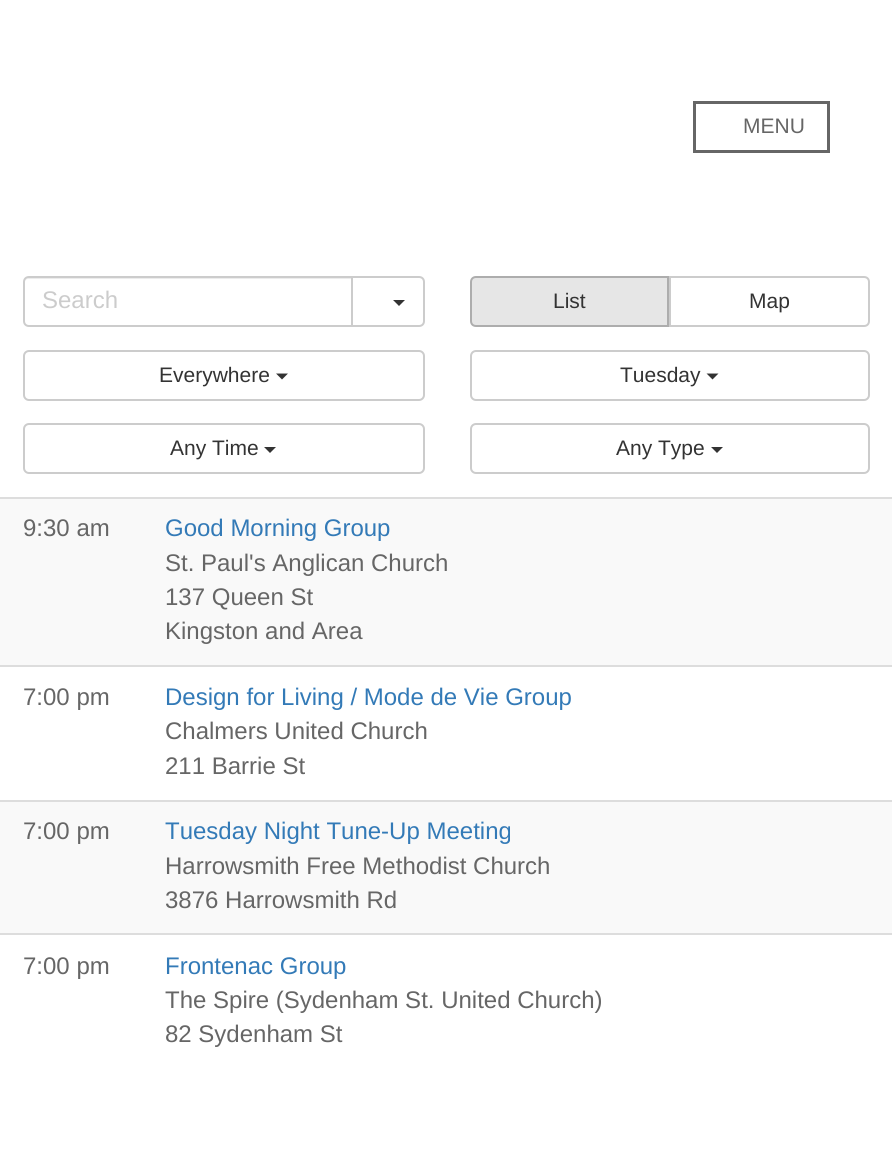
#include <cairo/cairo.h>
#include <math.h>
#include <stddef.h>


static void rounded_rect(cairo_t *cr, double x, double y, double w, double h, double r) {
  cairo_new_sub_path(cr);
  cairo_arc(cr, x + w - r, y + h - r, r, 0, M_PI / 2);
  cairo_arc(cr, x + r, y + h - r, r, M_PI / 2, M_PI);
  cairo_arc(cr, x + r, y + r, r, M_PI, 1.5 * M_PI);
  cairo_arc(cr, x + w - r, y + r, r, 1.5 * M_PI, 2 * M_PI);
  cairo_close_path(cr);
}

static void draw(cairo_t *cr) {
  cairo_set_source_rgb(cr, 1, 1, 1);
  cairo_paint(cr);
  cairo_rectangle(cr, 694.5, 102.5, 134, 49);
  cairo_set_source_rgb(cr, 102 / 255.0, 102 / 255.0, 102 / 255.0);
  cairo_set_line_width(cr, 3);
  cairo_stroke(cr);
  cairo_new_path(cr);
  cairo_move_to(cr, 352, 277);
  cairo_line_to(cr, 419, 277);
  cairo_curve_to(cr, 422, 277, 424, 279, 424, 282);
  cairo_line_to(cr, 424, 321);
  cairo_curve_to(cr, 424, 324, 422, 326, 419, 326);
  cairo_line_to(cr, 352, 326);
  cairo_close_path(cr);
  cairo_set_source_rgb(cr, 204 / 255.0, 204 / 255.0, 204 / 255.0);
  cairo_set_line_width(cr, 2);
  cairo_stroke(cr);
  cairo_set_source_rgb(cr, 1, 1, 1);
  cairo_new_path(cr);
  cairo_move_to(cr, 29, 276);
  cairo_line_to(cr, 353, 276);
  cairo_line_to(cr, 353, 327);
  cairo_line_to(cr, 29, 327);
  cairo_curve_to(cr, 25.5, 327, 23, 324.5, 23, 321);
  cairo_line_to(cr, 23, 282);
  cairo_curve_to(cr, 23, 278.5, 25.5, 276, 29, 276);
  cairo_close_path(cr);
  cairo_fill(cr);
  cairo_set_source_rgb(cr, 236 / 255.0, 236 / 255.0, 236 / 255.0);
  cairo_new_path(cr);
  cairo_move_to(cr, 28, 279);
  cairo_line_to(cr, 351, 279);
  cairo_line_to(cr, 351, 278);
  cairo_line_to(cr, 29, 278);
  cairo_curve_to(cr, 26, 278, 24, 281, 24, 284);
  cairo_curve_to(cr, 24, 281, 26, 279, 28, 279);
  cairo_close_path(cr);
  cairo_fill(cr);
  cairo_new_path(cr);
  cairo_move_to(cr, 29, 277);
  cairo_line_to(cr, 352, 277);
  cairo_line_to(cr, 352, 326);
  cairo_line_to(cr, 29, 326);
  cairo_curve_to(cr, 26, 326, 24, 324, 24, 321);
  cairo_line_to(cr, 24, 282);
  cairo_curve_to(cr, 24, 279, 26, 277, 29, 277);
  cairo_close_path(cr);
  cairo_set_source_rgb(cr, 204 / 255.0, 204 / 255.0, 204 / 255.0);
  cairo_stroke(cr);
  cairo_set_source_rgb(cr, 51 / 255.0, 51 / 255.0, 51 / 255.0);
  cairo_new_path(cr);
  cairo_move_to(cr, 393, 300);
  cairo_line_to(cr, 405, 300);
  cairo_line_to(cr, 399, 306);
  cairo_close_path(cr);
  cairo_fill(cr);
  cairo_set_source_rgb(cr, 230 / 255.0, 230 / 255.0, 230 / 255.0);
  cairo_new_path(cr);
  cairo_move_to(cr, 476, 277);
  cairo_line_to(cr, 668, 277);
  cairo_line_to(cr, 668, 326);
  cairo_line_to(cr, 476, 326);
  cairo_curve_to(cr, 473, 326, 471, 324, 471, 321);
  cairo_line_to(cr, 471, 282);
  cairo_curve_to(cr, 471, 279, 473, 277, 476, 277);
  cairo_close_path(cr);
  cairo_fill_preserve(cr);
  cairo_set_source_rgb(cr, 173 / 255.0, 173 / 255.0, 173 / 255.0);
  cairo_stroke(cr);
  cairo_new_path(cr);
  cairo_move_to(cr, 670, 277);
  cairo_line_to(cr, 864, 277);
  cairo_curve_to(cr, 867, 277, 869, 279, 869, 282);
  cairo_line_to(cr, 869, 321);
  cairo_curve_to(cr, 869, 324, 867, 326, 864, 326);
  cairo_line_to(cr, 670, 326);
  cairo_close_path(cr);
  cairo_set_source_rgb(cr, 204 / 255.0, 204 / 255.0, 204 / 255.0);
  cairo_stroke(cr);
  rounded_rect(cr, 24, 351, 400, 49, 5);
  cairo_stroke(cr);
  cairo_set_source_rgb(cr, 51 / 255.0, 51 / 255.0, 51 / 255.0);
  cairo_new_path(cr);
  cairo_move_to(cr, 276, 373.5);
  cairo_line_to(cr, 288, 373.5);
  cairo_line_to(cr, 282, 379.5);
  cairo_close_path(cr);
  cairo_fill(cr);
  rounded_rect(cr, 471, 351, 398, 49, 5);
  cairo_set_source_rgb(cr, 204 / 255.0, 204 / 255.0, 204 / 255.0);
  cairo_stroke(cr);
  cairo_set_source_rgb(cr, 51 / 255.0, 51 / 255.0, 51 / 255.0);
  cairo_new_path(cr);
  cairo_move_to(cr, 706.5, 373.5);
  cairo_line_to(cr, 718.5, 373.5);
  cairo_line_to(cr, 712.5, 379.5);
  cairo_close_path(cr);
  cairo_fill(cr);
  rounded_rect(cr, 24, 424, 400, 49, 5);
  cairo_set_source_rgb(cr, 204 / 255.0, 204 / 255.0, 204 / 255.0);
  cairo_stroke(cr);
  cairo_set_source_rgb(cr, 51 / 255.0, 51 / 255.0, 51 / 255.0);
  cairo_new_path(cr);
  cairo_move_to(cr, 264, 447);
  cairo_line_to(cr, 276, 447);
  cairo_line_to(cr, 270, 453);
  cairo_close_path(cr);
  cairo_fill(cr);
  rounded_rect(cr, 471, 424, 398, 49, 5);
  cairo_set_source_rgb(cr, 204 / 255.0, 204 / 255.0, 204 / 255.0);
  cairo_stroke(cr);
  cairo_set_source_rgb(cr, 51 / 255.0, 51 / 255.0, 51 / 255.0);
  cairo_new_path(cr);
  cairo_move_to(cr, 711, 447);
  cairo_line_to(cr, 723, 447);
  cairo_line_to(cr, 717, 453);
  cairo_close_path(cr);
  cairo_fill(cr);
  cairo_set_source_rgb(cr, 249 / 255.0, 249 / 255.0, 249 / 255.0);
  cairo_rectangle(cr, 0, 499, 892, 166);
  cairo_fill(cr);
  cairo_set_source_rgb(cr, 221 / 255.0, 221 / 255.0, 221 / 255.0);
  cairo_rectangle(cr, 0, 497, 892, 2);
  cairo_fill(cr);
  cairo_rectangle(cr, 0, 665, 892, 2);
  cairo_fill(cr);
  cairo_set_source_rgb(cr, 249 / 255.0, 249 / 255.0, 249 / 255.0);
  cairo_rectangle(cr, 0, 802, 892, 131);
  cairo_fill(cr);
  cairo_set_source_rgb(cr, 221 / 255.0, 221 / 255.0, 221 / 255.0);
  cairo_rectangle(cr, 0, 800, 892, 2);
  cairo_fill(cr);
  cairo_rectangle(cr, 0, 933, 892, 2);
  cairo_fill(cr);
  cairo_select_font_face(cr, "Liberation Sans", CAIRO_FONT_SLANT_NORMAL, CAIRO_FONT_WEIGHT_NORMAL);
  cairo_set_font_size(cr, 21);
  cairo_set_source_rgb(cr, 102 / 255.0, 102 / 255.0, 102 / 255.0);
  cairo_move_to(cr, 743, 133);
  cairo_show_text(cr, "MENU");
  cairo_set_font_size(cr, 24);
  cairo_set_source_rgb(cr, 204 / 255.0, 204 / 255.0, 204 / 255.0);
  cairo_move_to(cr, 42, 308);
  cairo_show_text(cr, "Search");
  cairo_set_font_size(cr, 21);
  cairo_set_source_rgb(cr, 51 / 255.0, 51 / 255.0, 51 / 255.0);
  cairo_move_to(cr, 553, 308);
  cairo_show_text(cr, "List");
  cairo_move_to(cr, 749, 308);
  cairo_show_text(cr, "Map");
  cairo_move_to(cr, 159, 382);
  cairo_show_text(cr, "Everywhere");
  cairo_move_to(cr, 620, 382);
  cairo_show_text(cr, "Tuesday");
  cairo_move_to(cr, 170, 455);
  cairo_show_text(cr, "Any Time");
  cairo_move_to(cr, 616, 455);
  cairo_show_text(cr, "Any Type");
  cairo_set_font_size(cr, 24);
  cairo_set_source_rgb(cr, 102 / 255.0, 102 / 255.0, 102 / 255.0);
  cairo_move_to(cr, 23, 536);
  cairo_show_text(cr, "9:30 am");
  cairo_set_source_rgb(cr, 51 / 255.0, 122 / 255.0, 183 / 255.0);
  cairo_move_to(cr, 165, 536);
  cairo_show_text(cr, "Good Morning Group");
  cairo_set_source_rgb(cr, 102 / 255.0, 102 / 255.0, 102 / 255.0);
  cairo_move_to(cr, 165, 571);
  cairo_show_text(cr, "St. Paul's Anglican Church");
  cairo_move_to(cr, 165, 605);
  cairo_show_text(cr, "137 Queen St");
  cairo_move_to(cr, 165, 639);
  cairo_show_text(cr, "Kingston and Area");
  cairo_move_to(cr, 23, 705);
  cairo_show_text(cr, "7:00 pm");
  cairo_set_source_rgb(cr, 51 / 255.0, 122 / 255.0, 183 / 255.0);
  cairo_move_to(cr, 165, 705);
  cairo_show_text(cr, "Design for Living / Mode de Vie Group");
  cairo_set_source_rgb(cr, 102 / 255.0, 102 / 255.0, 102 / 255.0);
  cairo_move_to(cr, 165, 739);
  cairo_show_text(cr, "Chalmers United Church");
  cairo_move_to(cr, 165, 774);
  cairo_show_text(cr, "211 Barrie St");
  cairo_move_to(cr, 23, 839);
  cairo_show_text(cr, "7:00 pm");
  cairo_set_source_rgb(cr, 51 / 255.0, 122 / 255.0, 183 / 255.0);
  cairo_move_to(cr, 165, 839);
  cairo_show_text(cr, "Tuesday Night Tune-Up Meeting");
  cairo_set_source_rgb(cr, 102 / 255.0, 102 / 255.0, 102 / 255.0);
  cairo_move_to(cr, 165, 874);
  cairo_show_text(cr, "Harrowsmith Free Methodist Church");
  cairo_move_to(cr, 165, 908);
  cairo_show_text(cr, "3876 Harrowsmith Rd");
  cairo_move_to(cr, 23, 974);
  cairo_show_text(cr, "7:00 pm");
  cairo_set_source_rgb(cr, 51 / 255.0, 122 / 255.0, 183 / 255.0);
  cairo_move_to(cr, 165, 974);
  cairo_show_text(cr, "Frontenac Group");
  cairo_set_source_rgb(cr, 102 / 255.0, 102 / 255.0, 102 / 255.0);
  cairo_move_to(cr, 165, 1008);
  cairo_show_text(cr, "The Spire (Sydenham St. United Church)");
  cairo_move_to(cr, 165, 1042);
  cairo_show_text(cr, "82 Sydenham St");
}

int main(void) {
  cairo_surface_t *surface = cairo_image_surface_create(CAIRO_FORMAT_RGB24, 892, 1167);
  cairo_t *cr = cairo_create(surface);
  cairo_font_options_t *options = cairo_font_options_create();
  cairo_font_options_set_hint_metrics(options, CAIRO_HINT_METRICS_OFF);
  cairo_font_options_set_hint_style(options, CAIRO_HINT_STYLE_NONE);
  cairo_set_font_options(cr, options);
  cairo_set_miter_limit(cr, 4);
  draw(cr);
  cairo_surface_write_to_png(surface, "out.png");
  cairo_font_options_destroy(options);
  cairo_destroy(cr);
  cairo_surface_destroy(surface);
  return 0;
}
